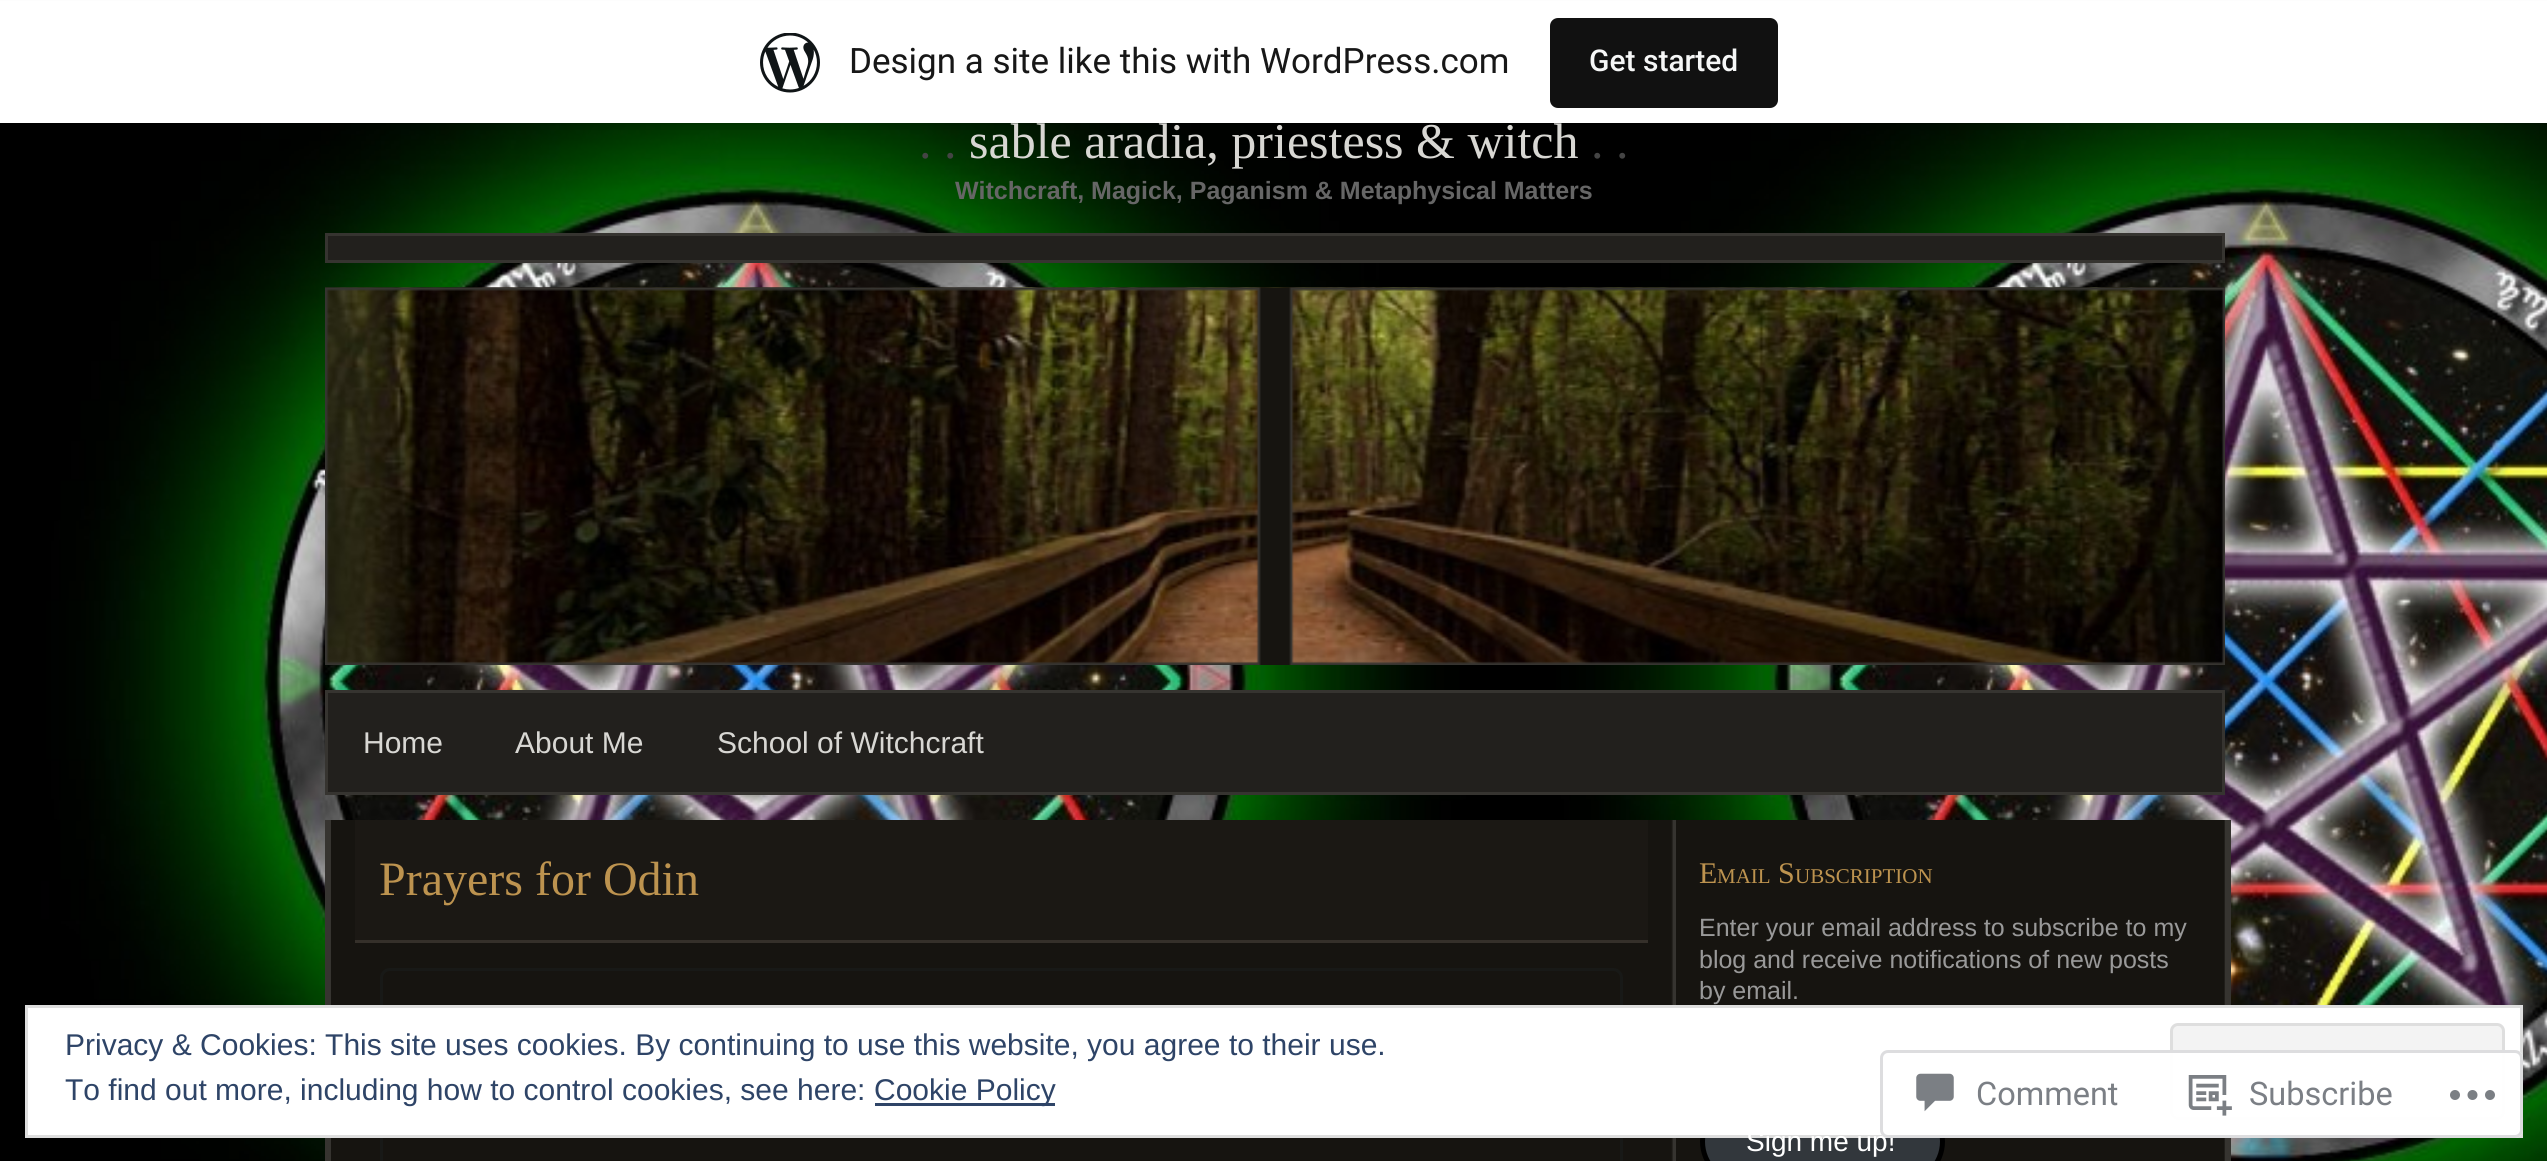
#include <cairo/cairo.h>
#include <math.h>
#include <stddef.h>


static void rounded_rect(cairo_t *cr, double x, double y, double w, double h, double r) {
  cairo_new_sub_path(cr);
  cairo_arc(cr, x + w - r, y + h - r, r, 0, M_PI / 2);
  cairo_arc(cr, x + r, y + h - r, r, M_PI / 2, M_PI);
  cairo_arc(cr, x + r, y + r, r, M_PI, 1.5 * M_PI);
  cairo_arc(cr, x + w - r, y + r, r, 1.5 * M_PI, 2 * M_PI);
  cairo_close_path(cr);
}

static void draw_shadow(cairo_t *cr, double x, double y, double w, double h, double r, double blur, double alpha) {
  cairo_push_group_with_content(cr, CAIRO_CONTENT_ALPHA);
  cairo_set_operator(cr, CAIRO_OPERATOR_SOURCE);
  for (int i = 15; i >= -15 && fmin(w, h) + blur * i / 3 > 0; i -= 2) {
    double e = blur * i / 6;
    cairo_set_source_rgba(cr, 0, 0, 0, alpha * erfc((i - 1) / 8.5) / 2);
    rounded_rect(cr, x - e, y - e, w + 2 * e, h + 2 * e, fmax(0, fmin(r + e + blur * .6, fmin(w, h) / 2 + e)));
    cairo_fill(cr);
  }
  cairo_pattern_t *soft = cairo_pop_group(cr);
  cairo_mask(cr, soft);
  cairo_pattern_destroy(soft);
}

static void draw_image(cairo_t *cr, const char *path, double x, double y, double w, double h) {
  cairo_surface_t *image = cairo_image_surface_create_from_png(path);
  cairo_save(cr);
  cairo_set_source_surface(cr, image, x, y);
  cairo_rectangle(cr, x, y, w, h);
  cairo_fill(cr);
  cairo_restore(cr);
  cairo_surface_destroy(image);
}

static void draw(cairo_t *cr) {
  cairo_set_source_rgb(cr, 1, 1, 1);
  cairo_paint(cr);
  draw_image(cr, "images/1.png", 0, 123, 2547, 1038);
  cairo_set_source_rgb(cr, 0, 0, 0);
  draw_shadow(cr, 0, 3, 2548, 122, 0, 2.5, 0.05);
  cairo_set_source_rgba(cr, 0, 0, 0, 0.08);
  cairo_new_path(cr);
  cairo_move_to(cr, 3, 122);
  cairo_line_to(cr, 3, 130);
  cairo_line_to(cr, 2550, 130);
  cairo_line_to(cr, 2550, 8);
  cairo_line_to(cr, 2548, 8);
  cairo_line_to(cr, 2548, 122);
  cairo_close_path(cr);
  cairo_fill(cr);
  cairo_set_source_rgb(cr, 1, 1, 1);
  cairo_rectangle(cr, 0, 1, 2547, 122);
  cairo_fill(cr);
  draw_image(cr, "images/2.png", 760, 33, 60, 60);
  cairo_set_source_rgb(cr, 17 / 255.0, 17 / 255.0, 17 / 255.0);
  rounded_rect(cr, 1550, 18, 228, 90, 8);
  cairo_fill(cr);
  cairo_set_source_rgb(cr, 34 / 255.0, 32 / 255.0, 29 / 255.0);
  cairo_rectangle(cr, 326.5, 234.5, 1897, 27);
  cairo_fill_preserve(cr);
  cairo_set_source_rgb(cr, 54 / 255.0, 52 / 255.0, 48 / 255.0);
  cairo_set_line_width(cr, 3);
  cairo_stroke(cr);
  draw_image(cr, "images/3.png", 325, 287, 1900, 377);
  draw_image(cr, "images/4.png", 325, 287, 1900, 378);
  cairo_set_source_rgb(cr, 34 / 255.0, 32 / 255.0, 29 / 255.0);
  cairo_rectangle(cr, 326.5, 691.5, 1897, 102);
  cairo_fill_preserve(cr);
  cairo_set_source_rgb(cr, 54 / 255.0, 52 / 255.0, 48 / 255.0);
  cairo_stroke(cr);
  draw_image(cr, "images/5.png", 331, 820, 1894, 341);
  cairo_rectangle(cr, 2225, 820, 6, 341);
  cairo_fill(cr);
  cairo_rectangle(cr, 325, 820, 6, 341);
  cairo_fill(cr);
  cairo_rectangle(cr, 1673, 820, 3, 341);
  cairo_fill(cr);
  cairo_set_source_rgb(cr, 27 / 255.0, 24 / 255.0, 20 / 255.0);
  cairo_rectangle(cr, 355, 820, 1293, 120);
  cairo_fill(cr);
  cairo_set_source_rgb(cr, 53 / 255.0, 48 / 255.0, 42 / 255.0);
  cairo_rectangle(cr, 355, 940, 1293, 3);
  cairo_fill(cr);
  rounded_rect(cr, 381.5, 969.5, 1240, 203, 8.5);
  cairo_set_source_rgb(cr, 24 / 255.0, 25 / 255.0, 23 / 255.0);
  cairo_stroke(cr);
  cairo_set_source_rgb(cr, 50 / 255.0, 55 / 255.0, 60 / 255.0);
  rounded_rect(cr, 1702.5, 1100.5, 240, 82, 41);
  cairo_fill_preserve(cr);
  cairo_set_source_rgb(cr, 0, 0, 0);
  cairo_set_line_width(cr, 5);
  cairo_stroke(cr);
  cairo_set_source_rgb(cr, 1, 1, 1);
  cairo_rectangle(cr, 26.5, 1006.5, 2495, 130);
  cairo_fill_preserve(cr);
  cairo_set_source_rgb(cr, 222 / 255.0, 222 / 255.0, 222 / 255.0);
  cairo_set_line_width(cr, 3);
  cairo_stroke(cr);
  cairo_set_source_rgb(cr, 243 / 255.0, 243 / 255.0, 243 / 255.0);
  rounded_rect(cr, 2171.5, 1024.5, 332, 94, 6.5);
  cairo_fill_preserve(cr);
  cairo_set_source_rgb(cr, 222 / 255.0, 222 / 255.0, 222 / 255.0);
  cairo_stroke(cr);
  cairo_set_source_rgb(cr, 46 / 255.0, 68 / 255.0, 103 / 255.0);
  cairo_rectangle(cr, 875, 1103, 180, 3);
  cairo_fill(cr);
  cairo_select_font_face(cr, "Roboto", CAIRO_FONT_SLANT_NORMAL, CAIRO_FONT_WEIGHT_NORMAL);
  cairo_set_font_size(cr, 35);
  cairo_set_source_rgb(cr, 23 / 255.0, 23 / 255.0, 23 / 255.0);
  cairo_move_to(cr, 849, 73);
  cairo_show_text(cr, "Design a site like this with WordPress.com");
  cairo_select_font_face(cr, "Roboto Medium", CAIRO_FONT_SLANT_NORMAL, CAIRO_FONT_WEIGHT_NORMAL);
  cairo_set_font_size(cr, 30);
  cairo_set_source_rgb(cr, 246 / 255.0, 247 / 255.0, 247 / 255.0);
  cairo_move_to(cr, 1589, 71);
  cairo_show_text(cr, "Get started");
  cairo_select_font_face(cr, "Liberation Serif", CAIRO_FONT_SLANT_NORMAL, CAIRO_FONT_WEIGHT_NORMAL);
  cairo_set_font_size(cr, 50);
  cairo_set_source_rgb(cr, 68 / 255.0, 68 / 255.0, 68 / 255.0);
  cairo_move_to(cr, 919, 158);
  cairo_show_text(cr, ". .");
  cairo_set_source_rgb(cr, 216 / 255.0, 215 / 255.0, 211 / 255.0);
  cairo_move_to(cr, 969, 158);
  cairo_show_text(cr, "sable aradia, priestess & witch");
  cairo_set_source_rgb(cr, 68 / 255.0, 68 / 255.0, 68 / 255.0);
  cairo_move_to(cr, 1591, 158);
  cairo_show_text(cr, ". .");
  cairo_select_font_face(cr, "Liberation Sans", CAIRO_FONT_SLANT_NORMAL, CAIRO_FONT_WEIGHT_BOLD);
  cairo_set_font_size(cr, 25);
  cairo_set_source_rgb(cr, 102 / 255.0, 102 / 255.0, 102 / 255.0);
  cairo_move_to(cr, 955, 199);
  cairo_show_text(cr, "Witchcraft, Magick, Paganism & Metaphysical Matters");
  cairo_select_font_face(cr, "Liberation Sans", CAIRO_FONT_SLANT_NORMAL, CAIRO_FONT_WEIGHT_NORMAL);
  cairo_set_font_size(cr, 30);
  cairo_set_source_rgb(cr, 216 / 255.0, 215 / 255.0, 211 / 255.0);
  cairo_move_to(cr, 363, 753);
  cairo_show_text(cr, "Home");
  cairo_move_to(cr, 515, 753);
  cairo_show_text(cr, "About Me");
  cairo_move_to(cr, 717, 753);
  cairo_show_text(cr, "School of Witchcraft");
  cairo_select_font_face(cr, "Liberation Serif", CAIRO_FONT_SLANT_NORMAL, CAIRO_FONT_WEIGHT_NORMAL);
  cairo_set_font_size(cr, 48);
  cairo_set_source_rgb(cr, 189 / 255.0, 147 / 255.0, 79 / 255.0);
  cairo_move_to(cr, 379, 895);
  cairo_show_text(cr, "Prayers for Odin");
  cairo_set_font_size(cr, 30);
  cairo_move_to(cr, 1699, 883);
  cairo_show_text(cr, "E");
  cairo_set_font_size(cr, 21);
  cairo_move_to(cr, 1717, 883);
  cairo_show_text(cr, "MAIL");
  cairo_set_font_size(cr, 30);
  cairo_move_to(cr, 1778, 883);
  cairo_show_text(cr, "S");
  cairo_set_font_size(cr, 21);
  cairo_move_to(cr, 1795, 883);
  cairo_show_text(cr, "UBSCRIPTION");
  cairo_select_font_face(cr, "Liberation Sans", CAIRO_FONT_SLANT_NORMAL, CAIRO_FONT_WEIGHT_NORMAL);
  cairo_set_font_size(cr, 25);
  cairo_set_source_rgb(cr, 153 / 255.0, 153 / 255.0, 153 / 255.0);
  cairo_move_to(cr, 1699, 936);
  cairo_show_text(cr, "Enter your email address to subscribe to my");
  cairo_move_to(cr, 1699, 968);
  cairo_show_text(cr, "blog and receive notifications of new posts");
  cairo_move_to(cr, 1699, 999);
  cairo_show_text(cr, "by email.");
  cairo_set_font_size(cr, 28);
  cairo_set_source_rgb(cr, 1, 1, 1);
  cairo_move_to(cr, 1746, 1151);
  cairo_show_text(cr, "Sign me up!");
  cairo_set_font_size(cr, 30);
  cairo_set_source_rgb(cr, 46 / 255.0, 68 / 255.0, 103 / 255.0);
  cairo_move_to(cr, 65, 1055);
  cairo_show_text(cr, "Privacy & Cookies: This site uses cookies. By continuing to use this website, you agree to their use.");
  cairo_move_to(cr, 65, 1100);
  cairo_show_text(cr, "To find out more, including how to control cookies, see here:");
  cairo_move_to(cr, 874, 1100);
  cairo_show_text(cr, "Cookie Policy");
  cairo_set_source_rgba(cr, 1, 1, 1, 0.98);
  rounded_rect(cr, 1880, 1050, 643, 88, 8);
  cairo_fill(cr);
  rounded_rect(cr, 1881.5, 1051.5, 640, 85, 6.5);
  cairo_set_source_rgba(cr, 220 / 255.0, 220 / 255.0, 222 / 255.0, 0.98);
  cairo_stroke(cr);
  draw_image(cr, "images/6.png", 1916, 1073, 38, 39);
  cairo_select_font_face(cr, "Roboto", CAIRO_FONT_SLANT_NORMAL, CAIRO_FONT_WEIGHT_NORMAL);
  cairo_set_font_size(cr, 32.5);
  cairo_set_source_rgb(cr, 123 / 255.0, 127 / 255.0, 133 / 255.0);
  cairo_move_to(cr, 1976, 1105);
  cairo_show_text(cr, "Comment");
  draw_image(cr, "images/7.png", 2188, 1075, 44, 41);
  cairo_move_to(cr, 2249, 1105);
  cairo_show_text(cr, "Subscribe");
  draw_image(cr, "images/8.png", 2450, 1090, 45, 10);
}

int main(void) {
  cairo_surface_t *surface = cairo_image_surface_create(CAIRO_FORMAT_RGB24, 2547, 1161);
  cairo_t *cr = cairo_create(surface);
  cairo_font_options_t *options = cairo_font_options_create();
  cairo_font_options_set_hint_metrics(options, CAIRO_HINT_METRICS_OFF);
  cairo_font_options_set_hint_style(options, CAIRO_HINT_STYLE_NONE);
  cairo_set_font_options(cr, options);
  cairo_set_miter_limit(cr, 4);
  draw(cr);
  cairo_surface_write_to_png(surface, "out.png");
  cairo_font_options_destroy(options);
  cairo_destroy(cr);
  cairo_surface_destroy(surface);
  return 0;
}
